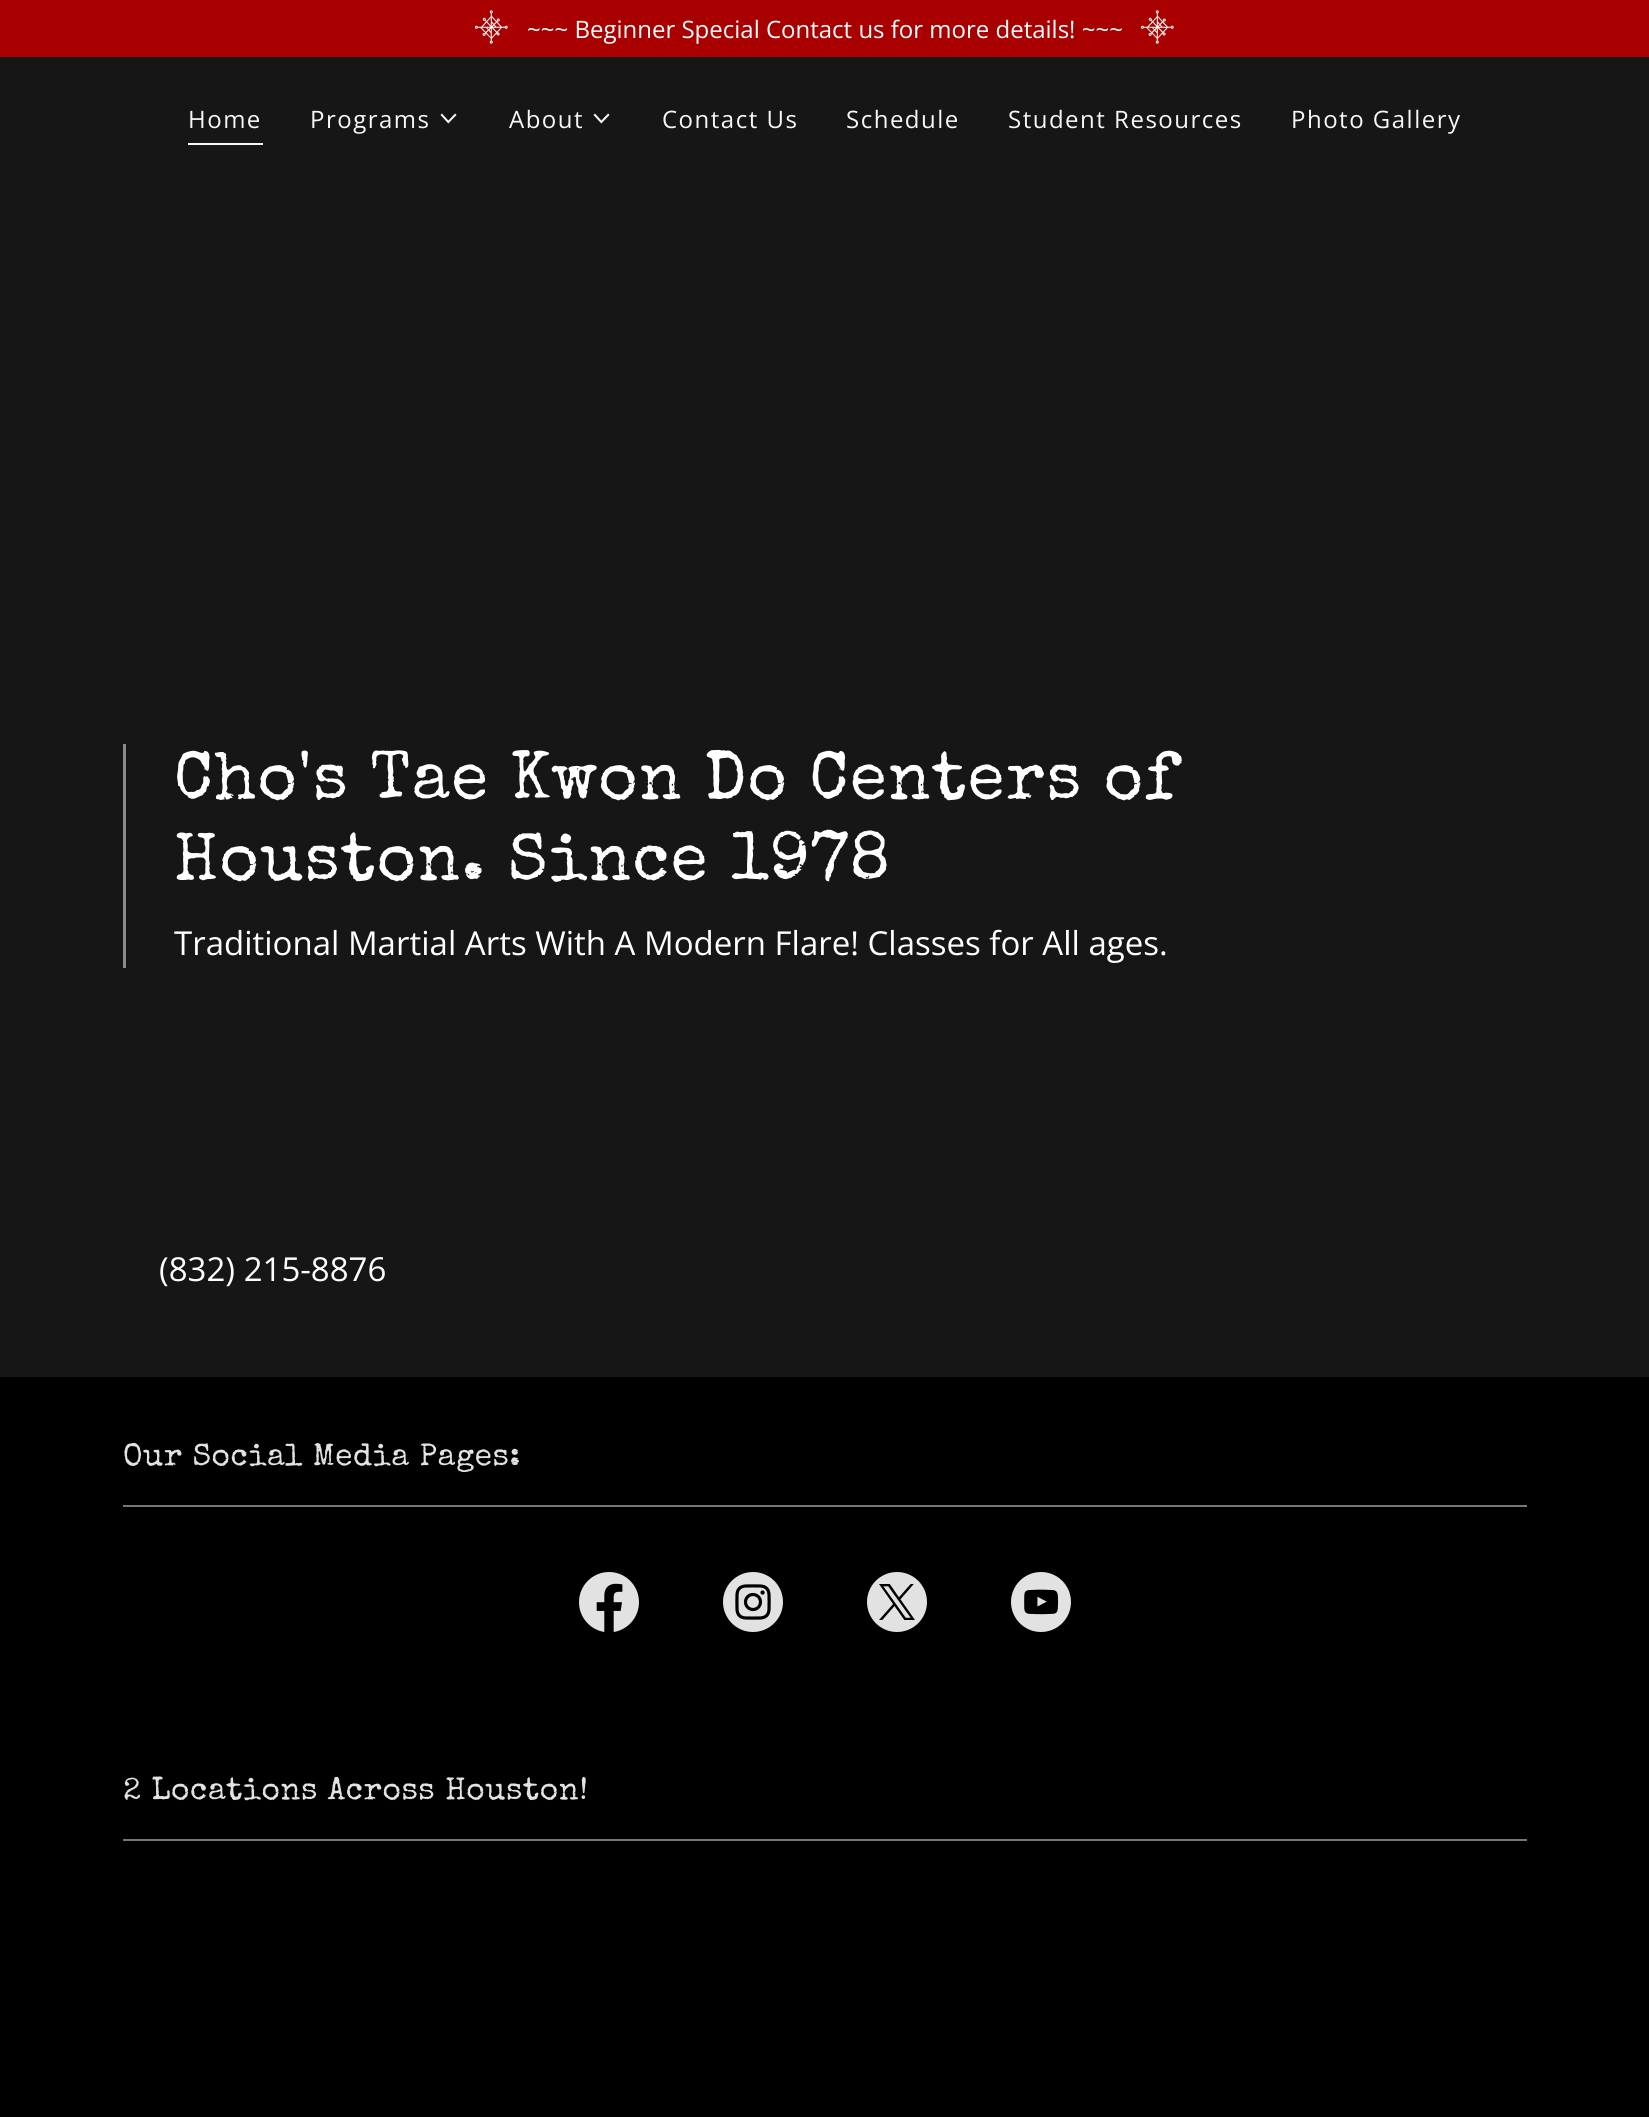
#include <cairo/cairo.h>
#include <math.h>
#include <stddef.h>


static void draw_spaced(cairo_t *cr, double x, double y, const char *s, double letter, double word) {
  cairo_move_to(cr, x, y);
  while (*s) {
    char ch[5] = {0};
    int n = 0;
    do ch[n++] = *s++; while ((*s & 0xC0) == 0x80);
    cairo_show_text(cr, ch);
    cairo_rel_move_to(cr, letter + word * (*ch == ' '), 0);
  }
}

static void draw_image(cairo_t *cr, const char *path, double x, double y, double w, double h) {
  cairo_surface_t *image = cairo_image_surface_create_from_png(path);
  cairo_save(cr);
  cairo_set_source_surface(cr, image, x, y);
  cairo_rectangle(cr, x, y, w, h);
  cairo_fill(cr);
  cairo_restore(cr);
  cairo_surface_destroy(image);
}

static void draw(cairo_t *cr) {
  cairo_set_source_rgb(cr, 0, 0, 0);
  cairo_paint(cr);
  cairo_set_source_rgb(cr, 22 / 255.0, 22 / 255.0, 22 / 255.0);
  cairo_rectangle(cr, 0, 57, 1649, 1320);
  cairo_fill(cr);
  cairo_set_source_rgb(cr, 168 / 255.0, 0, 0);
  cairo_rectangle(cr, 0, 0, 1649, 57);
  cairo_fill(cr);
  draw_image(cr, "images/1.png", 474, 10, 34, 34);
  draw_image(cr, "images/1.png", 1140, 10, 34, 34);
  cairo_set_source_rgb(cr, 247 / 255.0, 247 / 255.0, 247 / 255.0);
  cairo_rectangle(cr, 188, 143, 75, 2);
  cairo_fill(cr);
  draw_image(cr, "images/2.png", 440, 113, 17, 11);
  draw_image(cr, "images/2.png", 593, 113, 17, 11);
  cairo_set_source_rgb(cr, 139 / 255.0, 139 / 255.0, 139 / 255.0);
  cairo_rectangle(cr, 123, 744, 3, 224);
  cairo_fill(cr);
  cairo_set_source_rgb(cr, 119 / 255.0, 119 / 255.0, 119 / 255.0);
  cairo_rectangle(cr, 123, 1505, 1404, 2);
  cairo_fill(cr);
  draw_image(cr, "images/3.png", 579, 1572, 60, 60);
  draw_image(cr, "images/4.png", 723, 1572, 60, 60);
  draw_image(cr, "images/5.png", 867, 1572, 60, 60);
  draw_image(cr, "images/6.png", 1011, 1572, 60, 60);
  cairo_rectangle(cr, 123, 1839, 1404, 2);
  cairo_fill(cr);
  cairo_select_font_face(cr, "Open Sans", CAIRO_FONT_SLANT_NORMAL, CAIRO_FONT_WEIGHT_NORMAL);
  cairo_set_font_size(cr, 24);
  cairo_set_source_rgb(cr, 1, 1, 1);
  cairo_move_to(cr, 527, 38);
  cairo_show_text(cr, "~~~ Beginner Special Contact us for more details! ~~~");
  cairo_set_source_rgb(cr, 247 / 255.0, 247 / 255.0, 247 / 255.0);
  draw_spaced(cr, 188, 128, "Home", 1.5, 0);
  draw_spaced(cr, 310, 128, "Programs", 1.5, 0);
  draw_spaced(cr, 509, 128, "About", 1.5, 0);
  draw_spaced(cr, 662, 128, "Contact Us", 1.5, 0);
  draw_spaced(cr, 846, 128, "Schedule", 1.5, 0);
  draw_spaced(cr, 1008, 128, "Student Resources", 1.5, 0);
  draw_spaced(cr, 1291, 128, "Photo Gallery", 1.5, 0);
  cairo_select_font_face(cr, "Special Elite", CAIRO_FONT_SLANT_NORMAL, CAIRO_FONT_WEIGHT_NORMAL);
  cairo_set_font_size(cr, 67.5);
  cairo_set_source_rgb(cr, 1, 1, 1);
  draw_spaced(cr, 174, 798, "Cho's Tae Kwon Do Centers of", 1.35, 0);
  draw_spaced(cr, 174, 879, "Houston. Since 1978", 1.35, 0);
  cairo_select_font_face(cr, "Open Sans", CAIRO_FONT_SLANT_NORMAL, CAIRO_FONT_WEIGHT_NORMAL);
  cairo_set_font_size(cr, 33);
  cairo_move_to(cr, 174, 955);
  cairo_show_text(cr, "Traditional Martial Arts With A Modern Flare! Classes for All ages.");
  cairo_move_to(cr, 159, 1281);
  cairo_show_text(cr, "(832) 215-8876");
  cairo_select_font_face(cr, "Special Elite", CAIRO_FONT_SLANT_NORMAL, CAIRO_FONT_WEIGHT_NORMAL);
  cairo_set_font_size(cr, 31.5);
  cairo_set_source_rgb(cr, 226 / 255.0, 226 / 255.0, 226 / 255.0);
  draw_spaced(cr, 123, 1465, "Our Social Media Pages:", 0.6, 0);
  draw_spaced(cr, 123, 1799, "2 Locations Across Houston!", 0.6, 0);
}

int main(void) {
  cairo_surface_t *surface = cairo_image_surface_create(CAIRO_FORMAT_RGB24, 1649, 2117);
  cairo_t *cr = cairo_create(surface);
  cairo_font_options_t *options = cairo_font_options_create();
  cairo_font_options_set_hint_metrics(options, CAIRO_HINT_METRICS_OFF);
  cairo_font_options_set_hint_style(options, CAIRO_HINT_STYLE_NONE);
  cairo_set_font_options(cr, options);
  cairo_set_miter_limit(cr, 4);
  draw(cr);
  cairo_surface_write_to_png(surface, "out.png");
  cairo_font_options_destroy(options);
  cairo_destroy(cr);
  cairo_surface_destroy(surface);
  return 0;
}
